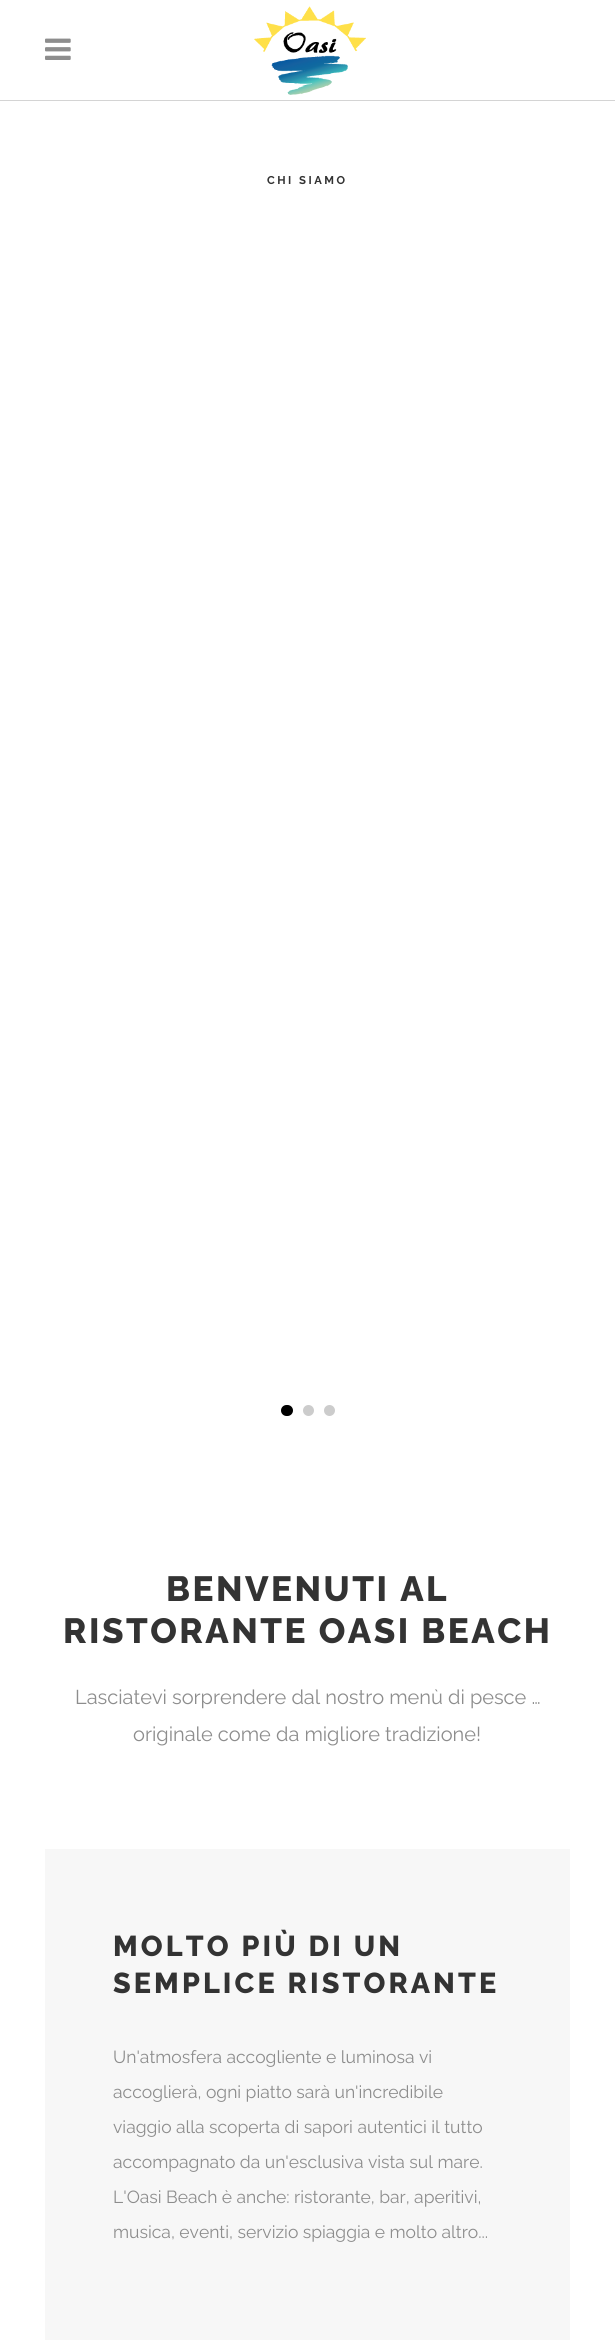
#include <cairo/cairo.h>
#include <math.h>
#include <stddef.h>


static void draw_spaced(cairo_t *cr, double x, double y, const char *s, double letter, double word) {
  cairo_move_to(cr, x, y);
  while (*s) {
    char ch[5] = {0};
    int n = 0;
    do ch[n++] = *s++; while ((*s & 0xC0) == 0x80);
    cairo_show_text(cr, ch);
    cairo_rel_move_to(cr, letter + word * (*ch == ' '), 0);
  }
}

static void rounded_rect(cairo_t *cr, double x, double y, double w, double h, double r) {
  cairo_new_sub_path(cr);
  cairo_arc(cr, x + w - r, y + h - r, r, 0, M_PI / 2);
  cairo_arc(cr, x + r, y + h - r, r, M_PI / 2, M_PI);
  cairo_arc(cr, x + r, y + r, r, M_PI, 1.5 * M_PI);
  cairo_arc(cr, x + w - r, y + r, r, 1.5 * M_PI, 2 * M_PI);
  cairo_close_path(cr);
}

static void draw_image(cairo_t *cr, const char *path, double x, double y, double w, double h) {
  cairo_surface_t *image = cairo_image_surface_create_from_png(path);
  cairo_save(cr);
  cairo_set_source_surface(cr, image, x, y);
  cairo_rectangle(cr, x, y, w, h);
  cairo_fill(cr);
  cairo_restore(cr);
  cairo_surface_destroy(image);
}

static void draw(cairo_t *cr) {
  cairo_set_source_rgb(cr, 1, 1, 1);
  cairo_paint(cr);
  cairo_set_source_rgb(cr, 212 / 255.0, 212 / 255.0, 212 / 255.0);
  cairo_rectangle(cr, 0, 100, 615, 1);
  cairo_fill(cr);
  draw_image(cr, "images/1.png", 45, 38, 26, 22);
  draw_image(cr, "images/2.png", 254, 6, 112, 89);
  cairo_set_source_rgb(cr, 0, 0, 0);
  rounded_rect(cr, 281, 1405, 12, 11, 5.5);
  cairo_fill(cr);
  cairo_set_source_rgb(cr, 204 / 255.0, 204 / 255.0, 204 / 255.0);
  cairo_arc(cr, 308.5, 1410.5, 5.5, 0, 2 * M_PI);
  cairo_fill(cr);
  cairo_arc(cr, 329.5, 1410.5, 5.5, 0, 2 * M_PI);
  cairo_fill(cr);
  cairo_set_source_rgb(cr, 247 / 255.0, 247 / 255.0, 247 / 255.0);
  cairo_rectangle(cr, 45, 1849, 525, 491);
  cairo_fill(cr);
  cairo_select_font_face(cr, "Raleway", CAIRO_FONT_SLANT_NORMAL, CAIRO_FONT_WEIGHT_BOLD);
  cairo_set_font_size(cr, 11.25);
  cairo_set_source_rgb(cr, 51 / 255.0, 51 / 255.0, 51 / 255.0);
  draw_spaced(cr, 267, 184, "CHI SIAMO", 2.5, 0);
  cairo_select_font_face(cr, "Raleway ExtraBold", CAIRO_FONT_SLANT_NORMAL, CAIRO_FONT_WEIGHT_NORMAL);
  cairo_set_font_size(cr, 35);
  draw_spaced(cr, 166, 1601, "BENVENUTI AL", 2.5, 0);
  draw_spaced(cr, 63, 1643, "RISTORANTE OASI BEACH", 2.5, 0);
  cairo_select_font_face(cr, "Raleway", CAIRO_FONT_SLANT_NORMAL, CAIRO_FONT_WEIGHT_NORMAL);
  cairo_set_font_size(cr, 20);
  cairo_set_source_rgb(cr, 141 / 255.0, 141 / 255.0, 141 / 255.0);
  cairo_move_to(cr, 75, 1704);
  cairo_show_text(cr, "Lasciatevi sorprendere dal nostro menù di pesce …");
  cairo_move_to(cr, 133, 1741);
  cairo_show_text(cr, "originale come da migliore tradizione!");
  cairo_select_font_face(cr, "Raleway ExtraBold", CAIRO_FONT_SLANT_NORMAL, CAIRO_FONT_WEIGHT_NORMAL);
  cairo_set_font_size(cr, 28.75);
  cairo_set_source_rgb(cr, 51 / 255.0, 51 / 255.0, 51 / 255.0);
  draw_spaced(cr, 113, 1956, "MOLTO PIÙ DI UN", 3.1, 0);
  draw_spaced(cr, 113, 1993, "SEMPLICE RISTORANTE", 3.1, 0);
  cairo_select_font_face(cr, "Raleway", CAIRO_FONT_SLANT_NORMAL, CAIRO_FONT_WEIGHT_NORMAL);
  cairo_set_font_size(cr, 17.5);
  cairo_set_source_rgb(cr, 141 / 255.0, 141 / 255.0, 141 / 255.0);
  cairo_move_to(cr, 113, 2063);
  cairo_show_text(cr, "Un'atmosfera accogliente e luminosa vi");
  cairo_move_to(cr, 113, 2098);
  cairo_show_text(cr, "accoglierà, ogni piatto sarà un'incredibile");
  cairo_move_to(cr, 113, 2133);
  cairo_show_text(cr, "viaggio alla scoperta di sapori autentici il tutto");
  cairo_move_to(cr, 113, 2168);
  cairo_show_text(cr, "accompagnato da un'esclusiva vista sul mare.");
  cairo_move_to(cr, 113, 2203);
  cairo_show_text(cr, "L'Oasi Beach è anche: ristorante, bar, aperitivi,");
  cairo_move_to(cr, 113, 2238);
  cairo_show_text(cr, "musica, eventi, servizio spiaggia e molto altro...");
}

int main(void) {
  cairo_surface_t *surface = cairo_image_surface_create(CAIRO_FORMAT_RGB24, 615, 2342);
  cairo_t *cr = cairo_create(surface);
  cairo_font_options_t *options = cairo_font_options_create();
  cairo_font_options_set_hint_metrics(options, CAIRO_HINT_METRICS_OFF);
  cairo_font_options_set_hint_style(options, CAIRO_HINT_STYLE_NONE);
  cairo_set_font_options(cr, options);
  cairo_set_miter_limit(cr, 4);
  draw(cr);
  cairo_surface_write_to_png(surface, "out.png");
  cairo_font_options_destroy(options);
  cairo_destroy(cr);
  cairo_surface_destroy(surface);
  return 0;
}
